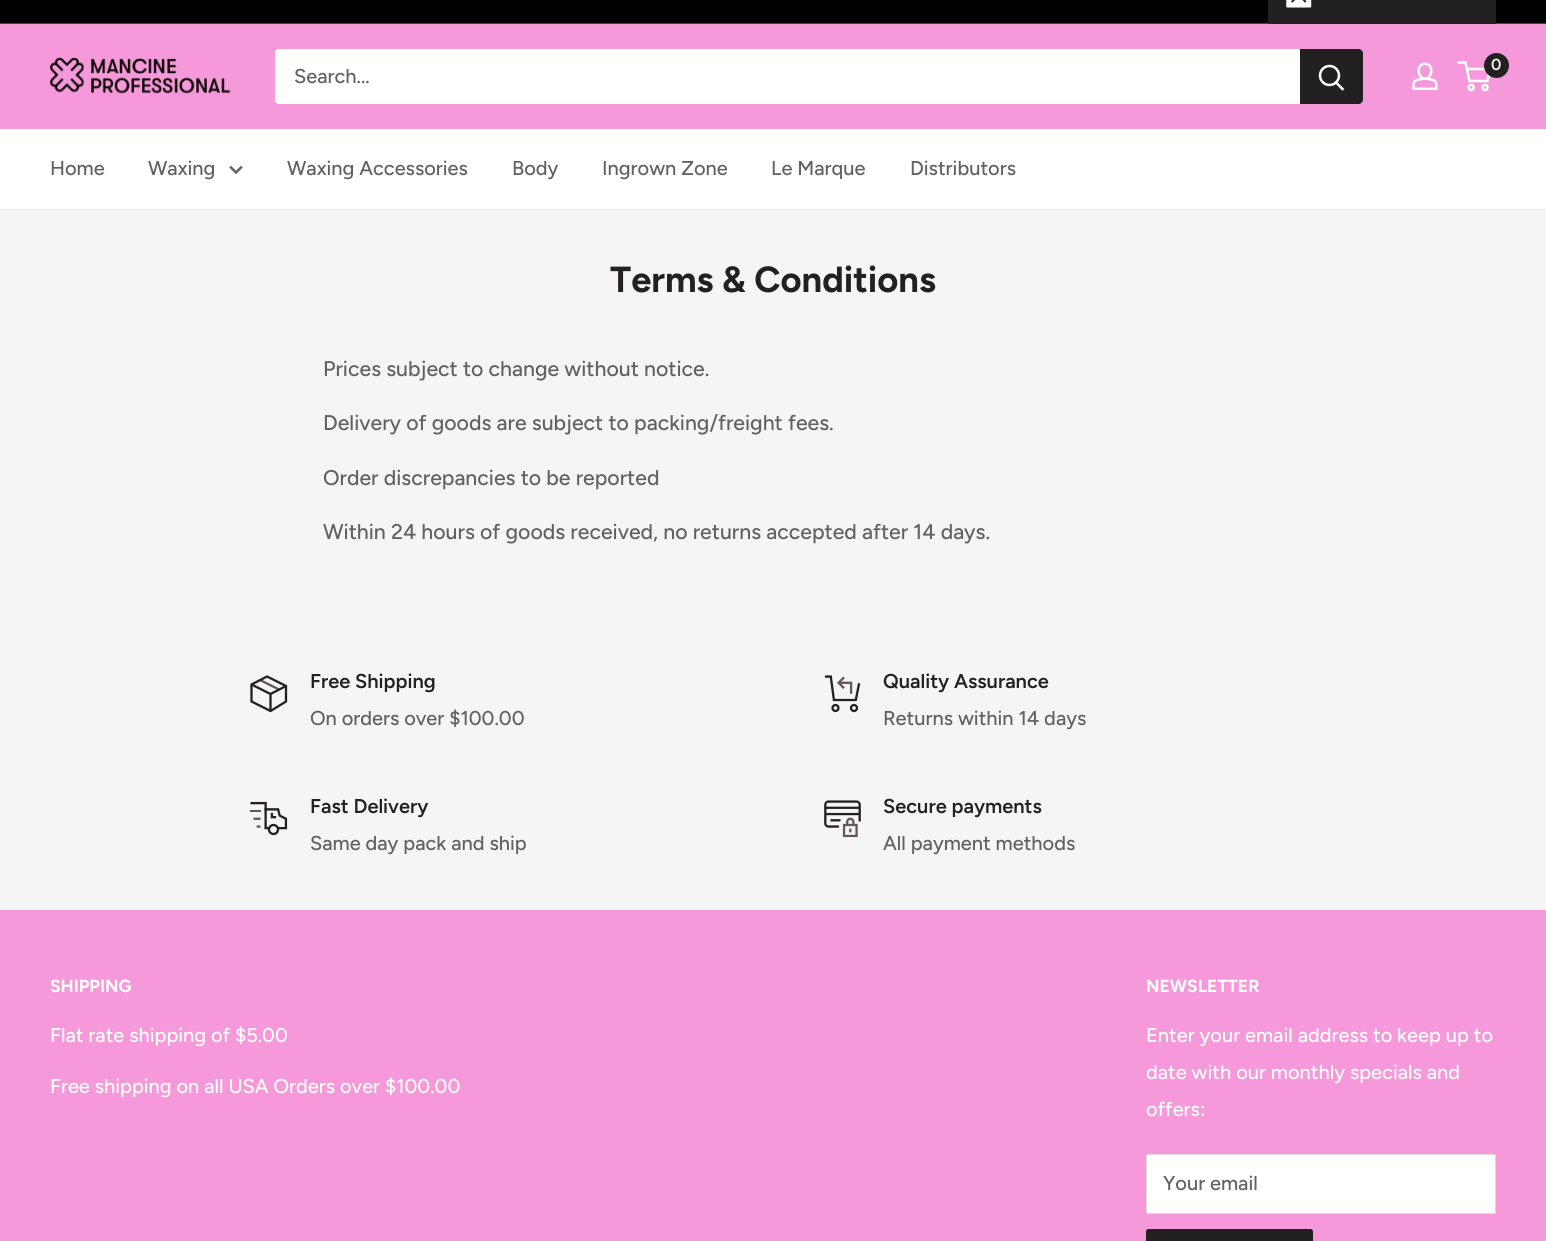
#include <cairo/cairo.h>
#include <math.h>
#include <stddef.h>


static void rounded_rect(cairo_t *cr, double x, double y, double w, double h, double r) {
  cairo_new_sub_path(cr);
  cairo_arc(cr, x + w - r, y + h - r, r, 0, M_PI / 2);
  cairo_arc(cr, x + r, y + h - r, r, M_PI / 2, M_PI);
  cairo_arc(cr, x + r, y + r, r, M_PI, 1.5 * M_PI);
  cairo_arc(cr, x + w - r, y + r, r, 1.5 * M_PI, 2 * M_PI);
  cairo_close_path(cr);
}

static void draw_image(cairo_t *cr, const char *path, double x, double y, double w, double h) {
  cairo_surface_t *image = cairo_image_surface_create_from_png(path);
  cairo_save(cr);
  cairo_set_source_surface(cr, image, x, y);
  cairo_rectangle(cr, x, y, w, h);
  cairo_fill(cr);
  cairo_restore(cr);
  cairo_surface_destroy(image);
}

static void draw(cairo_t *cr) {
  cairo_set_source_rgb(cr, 245 / 255.0, 245 / 255.0, 245 / 255.0);
  cairo_paint(cr);
  cairo_set_source_rgb(cr, 0, 0, 0);
  cairo_rectangle(cr, 0, 0, 1546, 23);
  cairo_fill(cr);
  cairo_set_source_rgb(cr, 70 / 255.0, 70 / 255.0, 70 / 255.0);
  cairo_rectangle(cr, 0, 23, 1546, 1);
  cairo_fill(cr);
  cairo_set_source_rgb(cr, 34 / 255.0, 32 / 255.0, 33 / 255.0);
  cairo_rectangle(cr, 1268, 0, 228, 24);
  cairo_fill(cr);
  draw_image(cr, "images/1.png", 1286, 0, 26, 8);
  cairo_set_source_rgb(cr, 245 / 255.0, 153 / 255.0, 219 / 255.0);
  cairo_rectangle(cr, 0, 24, 1546, 105);
  cairo_fill(cr);
  draw_image(cr, "images/2.png", 50, 57, 181, 37);
  draw_image(cr, "images/3.png", 1412, 62, 26, 28);
  cairo_arc(cr, 1471.2, 87.5, 2.5, 0, 2 * M_PI);
  cairo_set_source_rgb(cr, 1, 1, 1);
  cairo_set_line_width(cr, 2.5);
  cairo_stroke(cr);
  cairo_arc(cr, 1485, 87.5, 2.5, 0, 2 * M_PI);
  cairo_stroke(cr);
  cairo_new_path(cr);
  cairo_move_to(cr, 1466.5, 69);
  cairo_line_to(cr, 1489.5, 69);
  cairo_line_to(cr, 1487.5, 81);
  cairo_line_to(cr, 1469.5, 81);
  cairo_line_to(cr, 1465.5, 62.5);
  cairo_line_to(cr, 1457.5, 62.5);
  cairo_stroke(cr);
  cairo_set_source_rgb(cr, 34 / 255.0, 32 / 255.0, 33 / 255.0);
  cairo_arc(cr, 1496.5, 65.5, 12.5, 0, 2 * M_PI);
  cairo_fill(cr);
  cairo_set_source_rgb(cr, 1, 1, 1);
  rounded_rect(cr, 275, 49, 1088, 55, 4);
  cairo_fill(cr);
  cairo_set_source_rgb(cr, 34 / 255.0, 32 / 255.0, 33 / 255.0);
  cairo_new_path(cr);
  cairo_move_to(cr, 1300, 49);
  cairo_line_to(cr, 1359, 49);
  cairo_curve_to(cr, 1361, 49, 1363, 51, 1363, 53);
  cairo_line_to(cr, 1363, 100);
  cairo_curve_to(cr, 1363, 102, 1361, 104, 1359, 104);
  cairo_line_to(cr, 1300, 104);
  cairo_close_path(cr);
  cairo_fill(cr);
  cairo_new_path(cr);
  cairo_move_to(cr, 1342.5, 89);
  cairo_line_to(cr, 1336, 82.5);
  cairo_set_source_rgb(cr, 1, 1, 1);
  cairo_set_line_cap(cr, CAIRO_LINE_CAP_SQUARE);
  cairo_stroke(cr);
  cairo_arc(cr, 1329.5, 75.5, 9.5, 0, 2 * M_PI);
  cairo_set_line_cap(cr, CAIRO_LINE_CAP_BUTT);
  cairo_stroke(cr);
  cairo_rectangle(cr, 0, 129, 1546, 80);
  cairo_fill(cr);
  cairo_set_source_rgb(cr, 232 / 255.0, 232 / 255.0, 232 / 255.0);
  cairo_rectangle(cr, 0, 209, 1546, 1);
  cairo_fill(cr);
  cairo_new_path(cr);
  cairo_move_to(cr, 241, 167.5);
  cairo_line_to(cr, 236, 172.5);
  cairo_line_to(cr, 231, 167.5);
  cairo_set_source_rgb(cr, 97 / 255.0, 97 / 255.0, 97 / 255.0);
  cairo_set_line_cap(cr, CAIRO_LINE_CAP_SQUARE);
  cairo_stroke(cr);
  cairo_new_path(cr);
  cairo_move_to(cr, 260, 680);
  cairo_line_to(cr, 279, 689.5);
  cairo_set_source_rgb(cr, 102 / 255.0, 84 / 255.0, 97 / 255.0);
  cairo_set_line_width(cr, 2.3);
  cairo_set_line_cap(cr, CAIRO_LINE_CAP_BUTT);
  cairo_stroke(cr);
  cairo_new_path(cr);
  cairo_move_to(cr, 286, 686);
  cairo_line_to(cr, 270.5, 694);
  cairo_line_to(cr, 251.5, 684.5);
  cairo_move_to(cr, 270.5, 694);
  cairo_line_to(cr, 270.5, 711);
  cairo_set_source_rgb(cr, 34 / 255.0, 32 / 255.0, 33 / 255.0);
  cairo_stroke(cr);
  cairo_new_path(cr);
  cairo_move_to(cr, 286, 686);
  cairo_line_to(cr, 286, 701.5);
  cairo_line_to(cr, 270.5, 711);
  cairo_line_to(cr, 251.5, 701.5);
  cairo_line_to(cr, 251.5, 684.5);
  cairo_line_to(cr, 267, 676.5);
  cairo_close_path(cr);
  cairo_set_line_cap(cr, CAIRO_LINE_CAP_SQUARE);
  cairo_stroke(cr);
  draw_image(cr, "images/4.png", 824, 675, 37, 38);
  draw_image(cr, "images/5.png", 250, 801, 38, 35);
  draw_image(cr, "images/6.png", 824, 800, 37, 38);
  cairo_set_source_rgb(cr, 245 / 255.0, 153 / 255.0, 219 / 255.0);
  cairo_rectangle(cr, 0, 910, 1546, 331);
  cairo_fill(cr);
  cairo_set_source_rgb(cr, 1, 1, 1);
  rounded_rect(cr, 1146, 1154, 350, 60, 2.5);
  cairo_fill(cr);
  cairo_set_source_rgb(cr, 249 / 255.0, 249 / 255.0, 249 / 255.0);
  cairo_new_path(cr);
  cairo_move_to(cr, 1149, 1156);
  cairo_line_to(cr, 1494, 1156);
  cairo_line_to(cr, 1495, 1158);
  cairo_line_to(cr, 1495, 1155);
  cairo_line_to(cr, 1149, 1155);
  cairo_curve_to(cr, 1148, 1155, 1148, 1157, 1148, 1158);
  cairo_curve_to(cr, 1148, 1157, 1148, 1156, 1149, 1156);
  cairo_close_path(cr);
  cairo_fill(cr);
  rounded_rect(cr, 1146.5, 1154.5, 349, 59, 2);
  cairo_set_source_rgb(cr, 219 / 255.0, 219 / 255.0, 219 / 255.0);
  cairo_set_line_width(cr, 1);
  cairo_set_line_cap(cr, CAIRO_LINE_CAP_BUTT);
  cairo_stroke(cr);
  cairo_set_source_rgb(cr, 34 / 255.0, 32 / 255.0, 33 / 255.0);
  rounded_rect(cr, 1146, 1229, 167, 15, 2.5);
  cairo_fill(cr);
  cairo_select_font_face(cr, "Figtree SemiBold", CAIRO_FONT_SLANT_NORMAL, CAIRO_FONT_WEIGHT_NORMAL);
  cairo_set_font_size(cr, 16);
  cairo_set_source_rgb(cr, 1, 1, 1);
  cairo_move_to(cr, 1491, 70);
  cairo_show_text(cr, "0");
  cairo_select_font_face(cr, "Figtree Medium", CAIRO_FONT_SLANT_NORMAL, CAIRO_FONT_WEIGHT_NORMAL);
  cairo_set_font_size(cr, 20);
  cairo_set_source_rgb(cr, 97 / 255.0, 97 / 255.0, 97 / 255.0);
  cairo_move_to(cr, 294, 83);
  cairo_show_text(cr, "Search...");
  cairo_move_to(cr, 50, 175);
  cairo_show_text(cr, "Home");
  cairo_move_to(cr, 148, 175);
  cairo_show_text(cr, "Waxing");
  cairo_move_to(cr, 287, 175);
  cairo_show_text(cr, "Waxing Accessories");
  cairo_move_to(cr, 512, 175);
  cairo_show_text(cr, "Body");
  cairo_move_to(cr, 602, 175);
  cairo_show_text(cr, "Ingrown Zone");
  cairo_move_to(cr, 771, 175);
  cairo_show_text(cr, "Le Marque");
  cairo_move_to(cr, 910, 175);
  cairo_show_text(cr, "Distributors");
  cairo_select_font_face(cr, "Figtree", CAIRO_FONT_SLANT_NORMAL, CAIRO_FONT_WEIGHT_BOLD);
  cairo_set_font_size(cr, 36.25);
  cairo_set_source_rgb(cr, 34 / 255.0, 32 / 255.0, 33 / 255.0);
  cairo_move_to(cr, 610, 292);
  cairo_show_text(cr, "Terms & Conditions");
  cairo_select_font_face(cr, "Figtree Medium", CAIRO_FONT_SLANT_NORMAL, CAIRO_FONT_WEIGHT_NORMAL);
  cairo_set_font_size(cr, 21.25);
  cairo_set_source_rgb(cr, 97 / 255.0, 97 / 255.0, 97 / 255.0);
  cairo_move_to(cr, 323, 376);
  cairo_show_text(cr, "Prices subject to change without notice.");
  cairo_move_to(cr, 323, 430);
  cairo_show_text(cr, "Delivery of goods are subject to packing/freight fees.");
  cairo_move_to(cr, 323, 485);
  cairo_show_text(cr, "Order discrepancies to be reported");
  cairo_move_to(cr, 323, 539);
  cairo_show_text(cr, "Within 24 hours of goods received, no returns accepted after 14 days.");
  cairo_select_font_face(cr, "Figtree SemiBold", CAIRO_FONT_SLANT_NORMAL, CAIRO_FONT_WEIGHT_NORMAL);
  cairo_set_font_size(cr, 20);
  cairo_set_source_rgb(cr, 34 / 255.0, 32 / 255.0, 33 / 255.0);
  cairo_move_to(cr, 310, 688);
  cairo_show_text(cr, "Free Shipping");
  cairo_select_font_face(cr, "Figtree Medium", CAIRO_FONT_SLANT_NORMAL, CAIRO_FONT_WEIGHT_NORMAL);
  cairo_set_source_rgb(cr, 97 / 255.0, 97 / 255.0, 97 / 255.0);
  cairo_move_to(cr, 310, 725);
  cairo_show_text(cr, "On orders over $100.00");
  cairo_select_font_face(cr, "Figtree SemiBold", CAIRO_FONT_SLANT_NORMAL, CAIRO_FONT_WEIGHT_NORMAL);
  cairo_set_source_rgb(cr, 34 / 255.0, 32 / 255.0, 33 / 255.0);
  cairo_move_to(cr, 883, 688);
  cairo_show_text(cr, "Quality Assurance");
  cairo_select_font_face(cr, "Figtree Medium", CAIRO_FONT_SLANT_NORMAL, CAIRO_FONT_WEIGHT_NORMAL);
  cairo_set_source_rgb(cr, 97 / 255.0, 97 / 255.0, 97 / 255.0);
  cairo_move_to(cr, 883, 725);
  cairo_show_text(cr, "Returns within 14 days");
  cairo_select_font_face(cr, "Figtree SemiBold", CAIRO_FONT_SLANT_NORMAL, CAIRO_FONT_WEIGHT_NORMAL);
  cairo_set_source_rgb(cr, 34 / 255.0, 32 / 255.0, 33 / 255.0);
  cairo_move_to(cr, 310, 813);
  cairo_show_text(cr, "Fast Delivery");
  cairo_select_font_face(cr, "Figtree Medium", CAIRO_FONT_SLANT_NORMAL, CAIRO_FONT_WEIGHT_NORMAL);
  cairo_set_source_rgb(cr, 97 / 255.0, 97 / 255.0, 97 / 255.0);
  cairo_move_to(cr, 310, 850);
  cairo_show_text(cr, "Same day pack and ship");
  cairo_select_font_face(cr, "Figtree SemiBold", CAIRO_FONT_SLANT_NORMAL, CAIRO_FONT_WEIGHT_NORMAL);
  cairo_set_source_rgb(cr, 34 / 255.0, 32 / 255.0, 33 / 255.0);
  cairo_move_to(cr, 883, 813);
  cairo_show_text(cr, "Secure payments");
  cairo_select_font_face(cr, "Figtree Medium", CAIRO_FONT_SLANT_NORMAL, CAIRO_FONT_WEIGHT_NORMAL);
  cairo_set_source_rgb(cr, 97 / 255.0, 97 / 255.0, 97 / 255.0);
  cairo_move_to(cr, 883, 850);
  cairo_show_text(cr, "All payment methods");
  cairo_select_font_face(cr, "Figtree", CAIRO_FONT_SLANT_NORMAL, CAIRO_FONT_WEIGHT_BOLD);
  cairo_set_font_size(cr, 17.5);
  cairo_set_source_rgb(cr, 1, 1, 1);
  cairo_move_to(cr, 50, 992);
  cairo_show_text(cr, "SHIPPING");
  cairo_select_font_face(cr, "Figtree Medium", CAIRO_FONT_SLANT_NORMAL, CAIRO_FONT_WEIGHT_NORMAL);
  cairo_set_font_size(cr, 20);
  cairo_move_to(cr, 50, 1042);
  cairo_show_text(cr, "Flat rate shipping of $5.00");
  cairo_move_to(cr, 50, 1093);
  cairo_show_text(cr, "Free shipping on all USA Orders over $100.00");
  cairo_select_font_face(cr, "Figtree", CAIRO_FONT_SLANT_NORMAL, CAIRO_FONT_WEIGHT_BOLD);
  cairo_set_font_size(cr, 17.5);
  cairo_move_to(cr, 1146, 992);
  cairo_show_text(cr, "NEWSLETTER");
  cairo_select_font_face(cr, "Figtree Medium", CAIRO_FONT_SLANT_NORMAL, CAIRO_FONT_WEIGHT_NORMAL);
  cairo_set_font_size(cr, 20);
  cairo_move_to(cr, 1146, 1042);
  cairo_show_text(cr, "Enter your email address to keep up to");
  cairo_move_to(cr, 1146, 1079);
  cairo_show_text(cr, "date with our monthly specials and");
  cairo_move_to(cr, 1146, 1116);
  cairo_show_text(cr, "offers:");
  cairo_set_source_rgb(cr, 97 / 255.0, 97 / 255.0, 97 / 255.0);
  cairo_move_to(cr, 1163, 1190);
  cairo_show_text(cr, "Your email");
}

int main(void) {
  cairo_surface_t *surface = cairo_image_surface_create(CAIRO_FORMAT_RGB24, 1546, 1241);
  cairo_t *cr = cairo_create(surface);
  cairo_font_options_t *options = cairo_font_options_create();
  cairo_font_options_set_hint_metrics(options, CAIRO_HINT_METRICS_OFF);
  cairo_font_options_set_hint_style(options, CAIRO_HINT_STYLE_NONE);
  cairo_set_font_options(cr, options);
  cairo_set_miter_limit(cr, 4);
  draw(cr);
  cairo_surface_write_to_png(surface, "out.png");
  cairo_font_options_destroy(options);
  cairo_destroy(cr);
  cairo_surface_destroy(surface);
  return 0;
}
